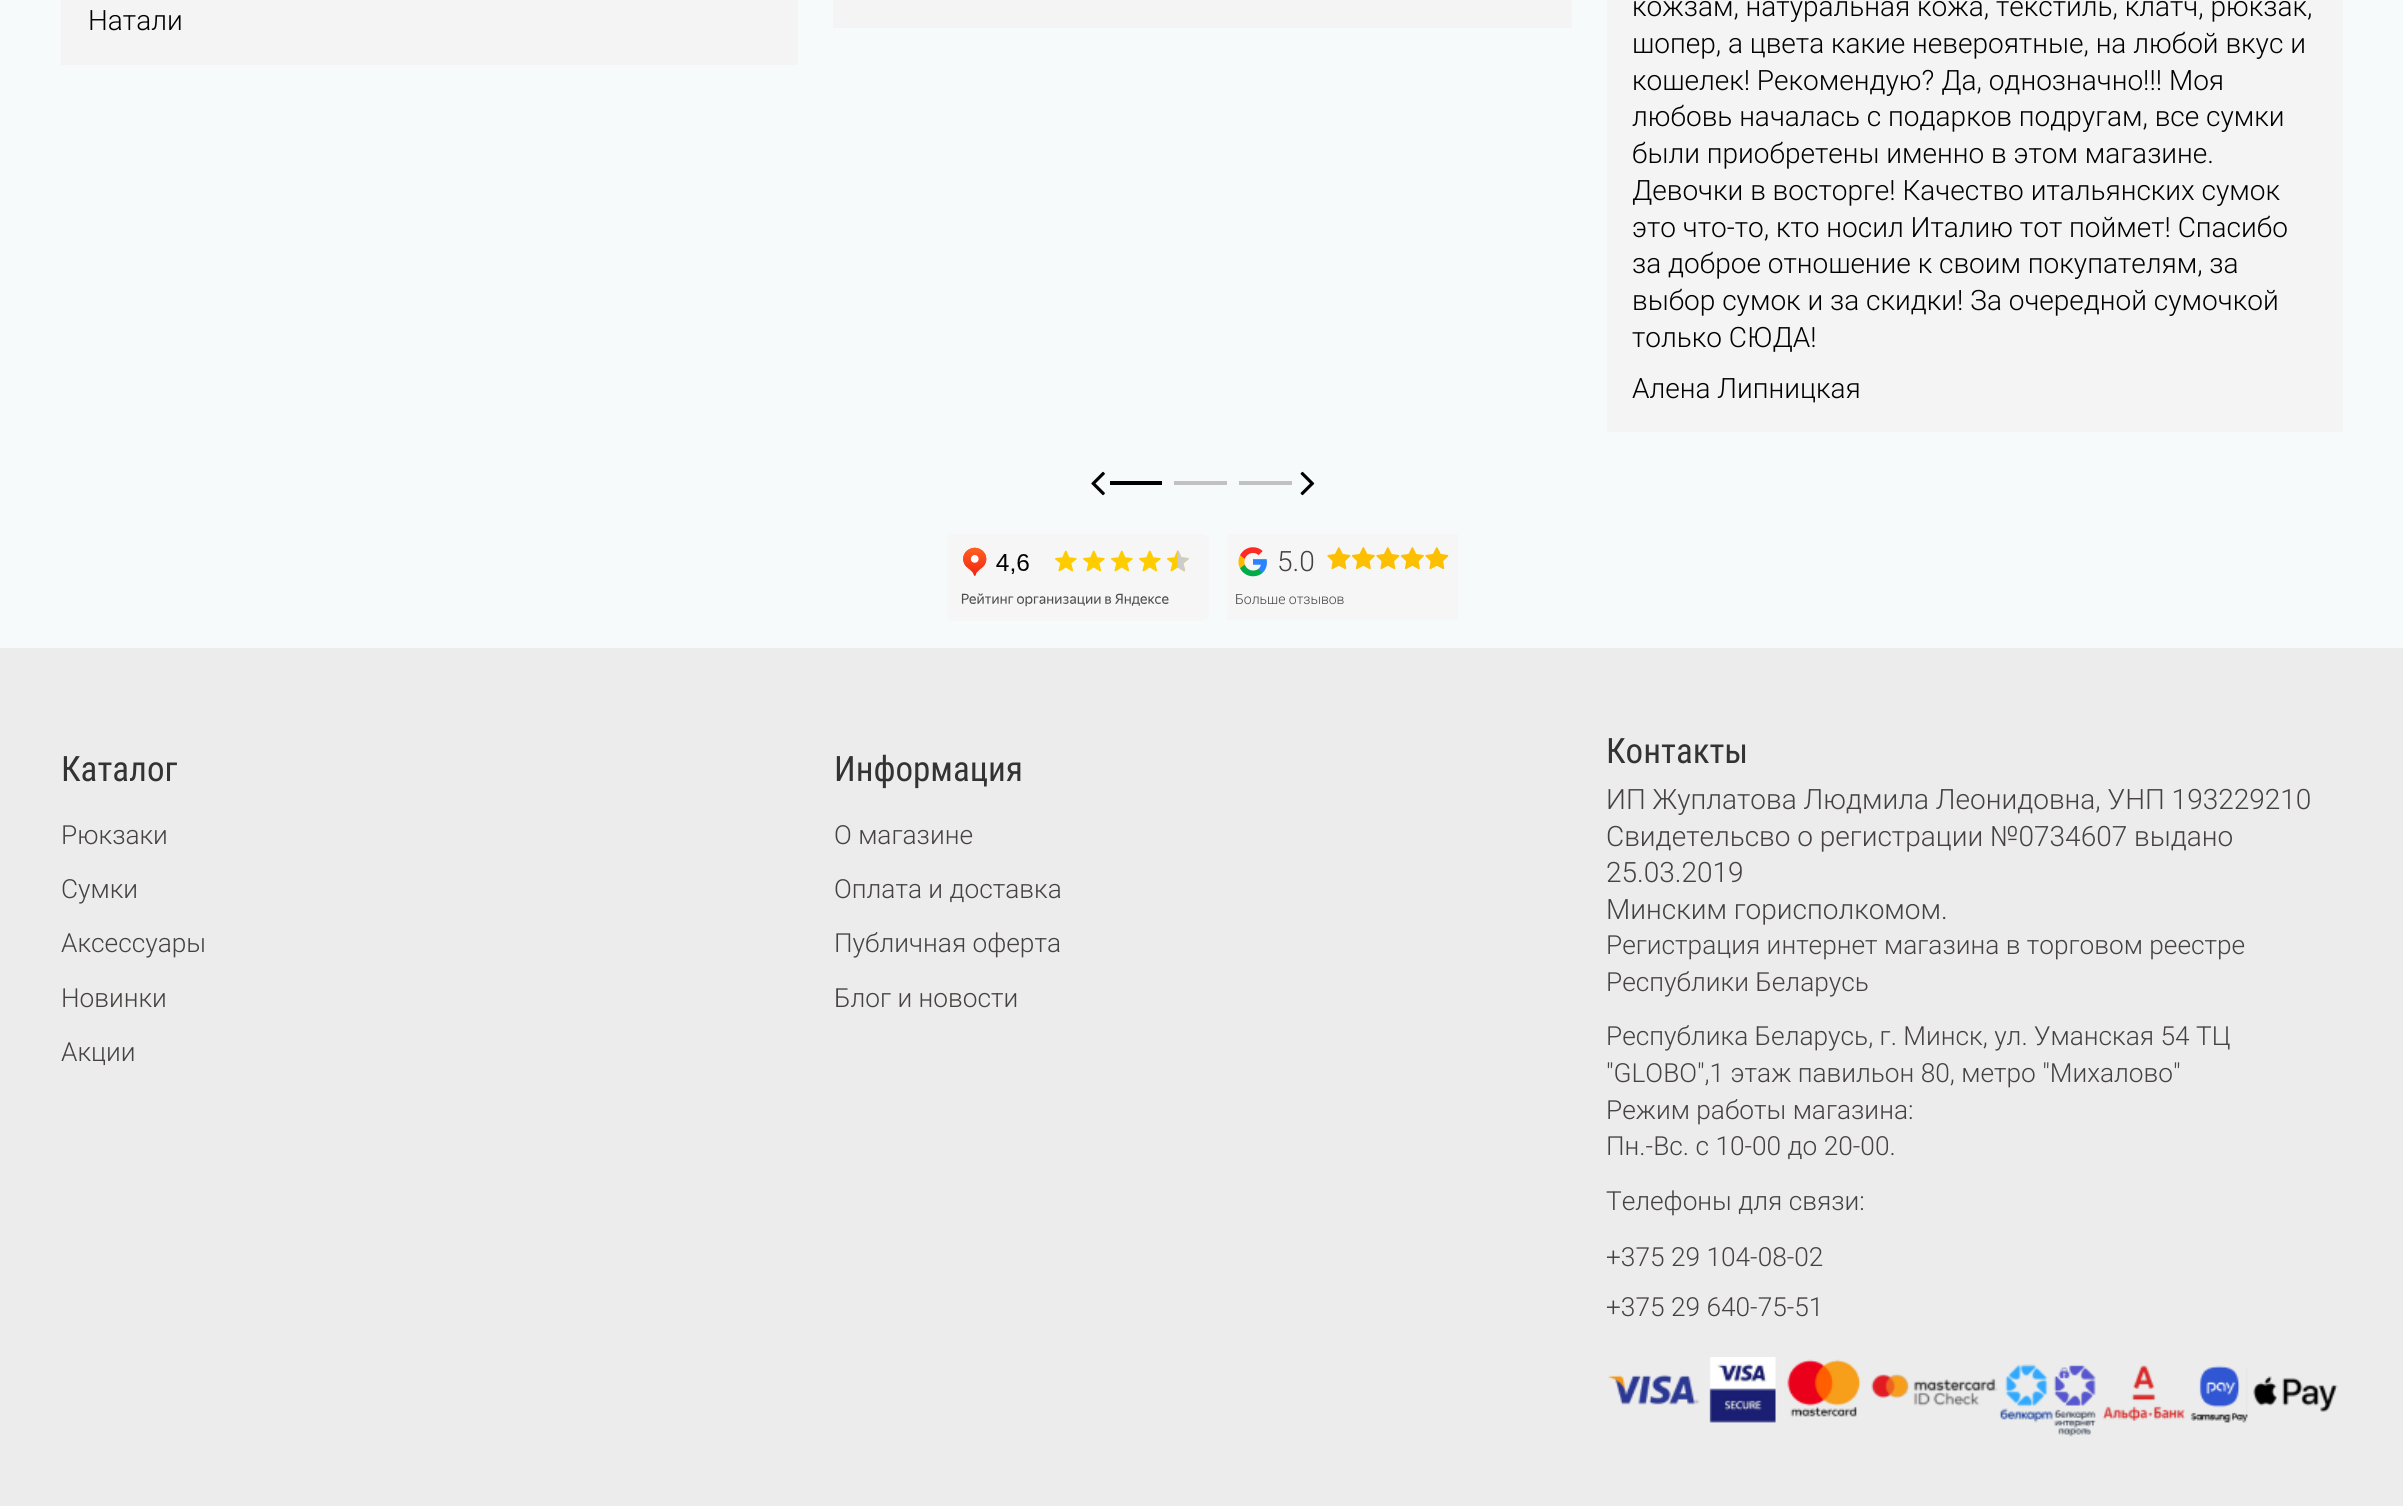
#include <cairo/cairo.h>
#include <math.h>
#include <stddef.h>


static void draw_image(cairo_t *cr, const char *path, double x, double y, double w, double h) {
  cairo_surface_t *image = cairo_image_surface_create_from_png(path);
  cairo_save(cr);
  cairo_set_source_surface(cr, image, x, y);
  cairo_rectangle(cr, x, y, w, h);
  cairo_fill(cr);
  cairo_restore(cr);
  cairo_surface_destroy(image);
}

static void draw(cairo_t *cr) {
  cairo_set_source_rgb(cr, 247 / 255.0, 250 / 255.0, 251 / 255.0);
  cairo_paint(cr);
  cairo_set_source_rgb(cr, 244 / 255.0, 244 / 255.0, 244 / 255.0);
  cairo_rectangle(cr, 61, 0, 737, 65);
  cairo_fill(cr);
  cairo_rectangle(cr, 833, 0, 739, 28);
  cairo_fill(cr);
  cairo_rectangle(cr, 1607, 0, 736, 432);
  cairo_fill(cr);
  draw_image(cr, "images/1.png", 1091, 471, 14, 25);
  cairo_set_source_rgb(cr, 0, 0, 0);
  cairo_rectangle(cr, 1110, 481, 52, 4);
  cairo_fill(cr);
  cairo_set_source_rgb(cr, 193 / 255.0, 193 / 255.0, 193 / 255.0);
  cairo_rectangle(cr, 1174, 481, 53, 4);
  cairo_fill(cr);
  cairo_rectangle(cr, 1239, 481, 53, 4);
  cairo_fill(cr);
  draw_image(cr, "images/2.png", 1300, 471, 15, 25);
  draw_image(cr, "images/3.png", 947, 534, 262, 87);
  cairo_set_source_rgb(cr, 246 / 255.0, 246 / 255.0, 246 / 255.0);
  cairo_rectangle(cr, 1227, 534, 231, 86);
  cairo_fill(cr);
  draw_image(cr, "images/4.png", 1238, 547, 29, 30);
  draw_image(cr, "images/5.png", 1327, 547, 24, 23);
  draw_image(cr, "images/6.png", 1351, 547, 24, 23);
  draw_image(cr, "images/5.png", 1376, 547, 24, 23);
  draw_image(cr, "images/6.png", 1400, 547, 24, 23);
  draw_image(cr, "images/5.png", 1425, 547, 24, 23);
  cairo_set_source_rgb(cr, 236 / 255.0, 236 / 255.0, 236 / 255.0);
  cairo_rectangle(cr, 0, 648, 2403, 858);
  cairo_fill(cr);
  draw_image(cr, "images/7.png", 1608, 1357, 730, 80);
  cairo_select_font_face(cr, "Roboto Light", CAIRO_FONT_SLANT_NORMAL, CAIRO_FONT_WEIGHT_NORMAL);
  cairo_set_font_size(cr, 28);
  cairo_set_source_rgb(cr, 0, 0, 0);
  cairo_move_to(cr, 88, 30);
  cairo_show_text(cr, "Натали");
  cairo_move_to(cr, 1632, 16);
  cairo_show_text(cr, "кожзам, натуральная кожа, текстиль, клатч, рюкзак,");
  cairo_move_to(cr, 1632, 53);
  cairo_show_text(cr, "шопер, а цвета какие невероятные, на любой вкус и");
  cairo_move_to(cr, 1632, 90);
  cairo_show_text(cr, "кошелек! Рекомендую? Да, однозначно!!! Моя");
  cairo_move_to(cr, 1632, 126);
  cairo_show_text(cr, "любовь началась с подарков подругам, все сумки");
  cairo_move_to(cr, 1632, 163);
  cairo_show_text(cr, "были приобретены именно в этом магазине.");
  cairo_move_to(cr, 1632, 200);
  cairo_show_text(cr, "Девочки в восторге! Качество итальянских сумок");
  cairo_move_to(cr, 1632, 237);
  cairo_show_text(cr, "это что-то, кто носил Италию тот поймет! Спасибо");
  cairo_move_to(cr, 1632, 273);
  cairo_show_text(cr, "за доброе отношение к своим покупателям, за");
  cairo_move_to(cr, 1632, 310);
  cairo_show_text(cr, "выбор сумок и за скидки! За очередной сумочкой");
  cairo_move_to(cr, 1632, 347);
  cairo_show_text(cr, "только СЮДА!");
  cairo_move_to(cr, 1632, 398);
  cairo_show_text(cr, "Алена Липницкая");
  cairo_set_source_rgb(cr, 70 / 255.0, 66 / 255.0, 66 / 255.0);
  cairo_move_to(cr, 1277, 571);
  cairo_show_text(cr, "5.0");
  cairo_set_font_size(cr, 14);
  cairo_move_to(cr, 1235, 604);
  cairo_show_text(cr, "Больше отзывов");
  cairo_select_font_face(cr, "Roboto Condensed", CAIRO_FONT_SLANT_NORMAL, CAIRO_FONT_WEIGHT_NORMAL);
  cairo_set_font_size(cr, 35);
  cairo_set_source_rgb(cr, 51 / 255.0, 51 / 255.0, 51 / 255.0);
  cairo_move_to(cr, 61, 781);
  cairo_show_text(cr, "Каталог");
  cairo_select_font_face(cr, "Roboto Light", CAIRO_FONT_SLANT_NORMAL, CAIRO_FONT_WEIGHT_NORMAL);
  cairo_set_font_size(cr, 26.25);
  cairo_set_source_rgb(cr, 70 / 255.0, 66 / 255.0, 66 / 255.0);
  cairo_move_to(cr, 61, 844);
  cairo_show_text(cr, "Рюкзаки");
  cairo_move_to(cr, 61, 898);
  cairo_show_text(cr, "Сумки");
  cairo_move_to(cr, 61, 952);
  cairo_show_text(cr, "Аксессуары");
  cairo_move_to(cr, 61, 1007);
  cairo_show_text(cr, "Новинки");
  cairo_move_to(cr, 61, 1061);
  cairo_show_text(cr, "Акции");
  cairo_select_font_face(cr, "Roboto Condensed", CAIRO_FONT_SLANT_NORMAL, CAIRO_FONT_WEIGHT_NORMAL);
  cairo_set_font_size(cr, 35);
  cairo_set_source_rgb(cr, 51 / 255.0, 51 / 255.0, 51 / 255.0);
  cairo_move_to(cr, 834, 781);
  cairo_show_text(cr, "Информация");
  cairo_select_font_face(cr, "Roboto Light", CAIRO_FONT_SLANT_NORMAL, CAIRO_FONT_WEIGHT_NORMAL);
  cairo_set_font_size(cr, 26.25);
  cairo_set_source_rgb(cr, 70 / 255.0, 66 / 255.0, 66 / 255.0);
  cairo_move_to(cr, 834, 844);
  cairo_show_text(cr, "О магазине");
  cairo_move_to(cr, 834, 898);
  cairo_show_text(cr, "Оплата и доставка");
  cairo_move_to(cr, 834, 952);
  cairo_show_text(cr, "Публичная оферта");
  cairo_move_to(cr, 834, 1007);
  cairo_show_text(cr, "Блог и новости");
  cairo_select_font_face(cr, "Roboto Condensed", CAIRO_FONT_SLANT_NORMAL, CAIRO_FONT_WEIGHT_NORMAL);
  cairo_set_font_size(cr, 35);
  cairo_set_source_rgb(cr, 51 / 255.0, 51 / 255.0, 51 / 255.0);
  cairo_move_to(cr, 1606, 763);
  cairo_show_text(cr, "Контакты");
  cairo_select_font_face(cr, "Roboto Light", CAIRO_FONT_SLANT_NORMAL, CAIRO_FONT_WEIGHT_NORMAL);
  cairo_set_font_size(cr, 28);
  cairo_set_source_rgb(cr, 70 / 255.0, 66 / 255.0, 66 / 255.0);
  cairo_move_to(cr, 1606, 809);
  cairo_show_text(cr, "ИП Жуплатова Людмила Леонидовна, УНП 193229210");
  cairo_move_to(cr, 1606, 846);
  cairo_show_text(cr, "Свидетельсво о регистрации №0734607 выдано");
  cairo_move_to(cr, 1606, 882);
  cairo_show_text(cr, "25.03.2019");
  cairo_move_to(cr, 1606, 919);
  cairo_show_text(cr, "Минским горисполкомом.");
  cairo_set_font_size(cr, 26.25);
  cairo_move_to(cr, 1606, 954);
  cairo_show_text(cr, "Регистрация интернет магазина в торговом реестре");
  cairo_move_to(cr, 1606, 991);
  cairo_show_text(cr, "Республики Беларусь");
  cairo_move_to(cr, 1606, 1045);
  cairo_show_text(cr, "Республика Беларусь, г. Минск, ул. Уманская 54 ТЦ");
  cairo_move_to(cr, 1606, 1082);
  cairo_show_text(cr, "\"GLOBO\",1 этаж павильон 80, метро \"Михалово\"");
  cairo_move_to(cr, 1606, 1119);
  cairo_show_text(cr, "Режим работы магазина:");
  cairo_move_to(cr, 1606, 1155);
  cairo_show_text(cr, "Пн.-Вс. с 10-00 до 20-00.");
  cairo_move_to(cr, 1606, 1210);
  cairo_show_text(cr, "Телефоны для связи:");
  cairo_move_to(cr, 1606, 1266);
  cairo_show_text(cr, "+375 29 104-08-02");
  cairo_move_to(cr, 1606, 1316);
  cairo_show_text(cr, "+375 29 640-75-51");
}

int main(void) {
  cairo_surface_t *surface = cairo_image_surface_create(CAIRO_FORMAT_RGB24, 2403, 1506);
  cairo_t *cr = cairo_create(surface);
  cairo_font_options_t *options = cairo_font_options_create();
  cairo_font_options_set_hint_metrics(options, CAIRO_HINT_METRICS_OFF);
  cairo_font_options_set_hint_style(options, CAIRO_HINT_STYLE_NONE);
  cairo_set_font_options(cr, options);
  cairo_set_miter_limit(cr, 4);
  draw(cr);
  cairo_surface_write_to_png(surface, "out.png");
  cairo_font_options_destroy(options);
  cairo_destroy(cr);
  cairo_surface_destroy(surface);
  return 0;
}
